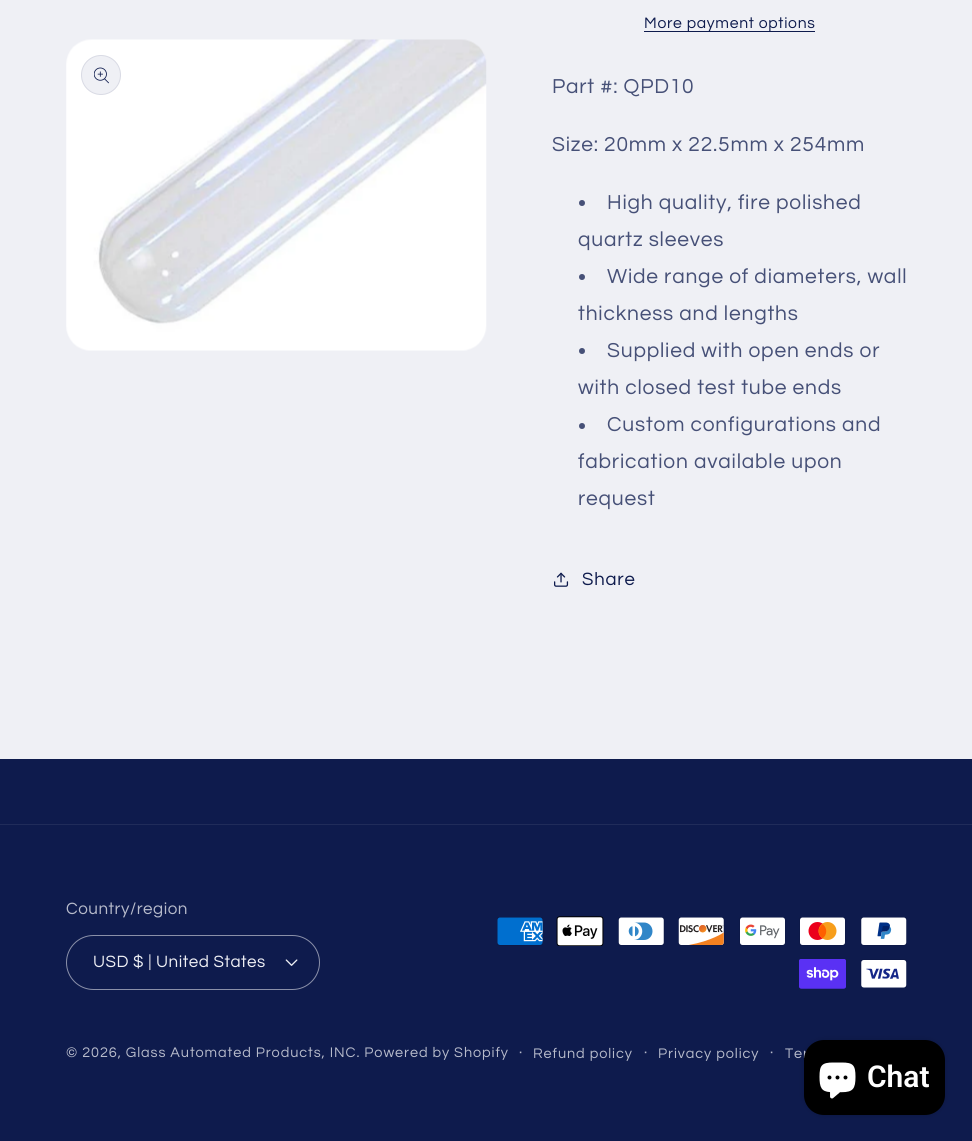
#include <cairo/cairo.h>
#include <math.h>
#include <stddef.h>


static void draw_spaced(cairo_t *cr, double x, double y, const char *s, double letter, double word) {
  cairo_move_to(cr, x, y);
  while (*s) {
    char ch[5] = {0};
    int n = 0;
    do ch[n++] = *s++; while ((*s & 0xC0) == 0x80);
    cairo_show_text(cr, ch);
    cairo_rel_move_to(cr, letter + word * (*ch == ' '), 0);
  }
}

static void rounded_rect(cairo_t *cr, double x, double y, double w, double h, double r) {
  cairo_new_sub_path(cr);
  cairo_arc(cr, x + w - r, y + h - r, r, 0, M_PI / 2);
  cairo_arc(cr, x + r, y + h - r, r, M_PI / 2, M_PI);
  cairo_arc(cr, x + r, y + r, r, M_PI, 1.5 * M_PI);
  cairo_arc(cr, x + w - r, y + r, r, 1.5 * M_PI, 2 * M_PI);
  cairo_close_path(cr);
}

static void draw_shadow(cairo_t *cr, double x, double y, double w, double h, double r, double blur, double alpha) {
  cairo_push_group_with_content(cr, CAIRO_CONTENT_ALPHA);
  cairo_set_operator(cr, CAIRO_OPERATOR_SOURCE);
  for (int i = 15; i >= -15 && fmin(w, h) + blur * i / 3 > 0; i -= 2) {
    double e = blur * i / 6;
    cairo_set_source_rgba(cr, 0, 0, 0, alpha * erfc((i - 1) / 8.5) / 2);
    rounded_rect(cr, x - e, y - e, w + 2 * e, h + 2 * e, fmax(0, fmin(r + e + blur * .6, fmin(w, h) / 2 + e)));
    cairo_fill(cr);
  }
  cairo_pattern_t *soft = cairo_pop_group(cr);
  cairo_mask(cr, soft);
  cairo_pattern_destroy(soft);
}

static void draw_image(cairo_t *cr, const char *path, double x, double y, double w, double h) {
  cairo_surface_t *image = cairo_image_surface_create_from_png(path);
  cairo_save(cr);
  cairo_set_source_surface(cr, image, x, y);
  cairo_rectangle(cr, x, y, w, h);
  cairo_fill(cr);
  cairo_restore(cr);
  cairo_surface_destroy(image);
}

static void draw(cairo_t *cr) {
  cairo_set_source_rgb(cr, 239 / 255.0, 240 / 255.0, 245 / 255.0);
  cairo_paint(cr);
  draw_image(cr, "images/1.png", 66, 39, 421, 312);
  cairo_set_source_rgb(cr, 239 / 255.0, 240 / 255.0, 245 / 255.0);
  cairo_arc(cr, 101, 75, 20, 0, 2 * M_PI);
  cairo_fill(cr);
  cairo_arc(cr, 101, 75, 19.5, 0, 2 * M_PI);
  cairo_set_source_rgba(cr, 14 / 255.0, 27 / 255.0, 77 / 255.0, 0.1);
  cairo_set_line_width(cr, 1);
  cairo_stroke(cr);
  draw_image(cr, "images/2.png", 94, 67, 15, 17);
  cairo_set_source_rgb(cr, 14 / 255.0, 27 / 255.0, 77 / 255.0);
  cairo_rectangle(cr, 644, 31, 171, 1);
  cairo_fill(cr);
  cairo_set_source_rgb(cr, 70 / 255.0, 80 / 255.0, 119 / 255.0);
  cairo_arc(cr, 582, 203, 3, 0, 2 * M_PI);
  cairo_fill(cr);
  cairo_arc(cr, 582, 277, 3, 0, 2 * M_PI);
  cairo_fill(cr);
  cairo_arc(cr, 582, 351, 3, 0, 2 * M_PI);
  cairo_fill(cr);
  cairo_arc(cr, 582, 426, 3, 0, 2 * M_PI);
  cairo_fill(cr);
  draw_image(cr, "images/3.png", 554, 572, 15, 15);
  cairo_set_source_rgb(cr, 14 / 255.0, 27 / 255.0, 77 / 255.0);
  cairo_rectangle(cr, 0, 759, 972, 382);
  cairo_fill(cr);
  cairo_set_source_rgb(cr, 32 / 255.0, 44 / 255.0, 90 / 255.0);
  cairo_rectangle(cr, 0, 824, 972, 1);
  cairo_fill(cr);
  draw_image(cr, "images/4.png", 285, 959, 13, 7);
  rounded_rect(cr, 66.5, 935.5, 253, 54, 27);
  cairo_set_source_rgb(cr, 138 / 255.0, 144 / 255.0, 169 / 255.0);
  cairo_stroke(cr);
  draw_image(cr, "images/5.png", 497, 917, 46, 29);
  draw_image(cr, "images/6.png", 556, 916, 48, 30);
  draw_image(cr, "images/7.png", 618, 917, 47, 29);
  draw_image(cr, "images/8.png", 678, 917, 47, 29);
  draw_image(cr, "images/9.png", 739, 917, 47, 29);
  draw_image(cr, "images/10.png", 799, 917, 47, 29);
  draw_image(cr, "images/11.png", 860, 917, 47, 29);
  draw_image(cr, "images/12.png", 799, 959, 47, 30);
  draw_image(cr, "images/13.png", 860, 959, 47, 29);
  cairo_set_source_rgb(cr, 0, 0, 0);
  draw_shadow(cr, 804, 1040, 141, 75, 20, 3, 0.15);
  cairo_select_font_face(cr, "Questrial", CAIRO_FONT_SLANT_NORMAL, CAIRO_FONT_WEIGHT_NORMAL);
  cairo_set_font_size(cr, 15.75);
  cairo_set_source_rgb(cr, 14 / 255.0, 27 / 255.0, 77 / 255.0);
  draw_spaced(cr, 644, 28, "More payment options", 0.7, 0);
  cairo_set_font_size(cr, 21);
  cairo_set_source_rgb(cr, 70 / 255.0, 80 / 255.0, 119 / 255.0);
  draw_spaced(cr, 552, 93, "Part #: QPD10", 0.8, 0);
  draw_spaced(cr, 552, 151, "Size: 20mm x 22.5mm x 254mm", 0.8, 0);
  draw_spaced(cr, 607, 209, "High quality, fire polished", 0.8, 0);
  draw_spaced(cr, 578, 246, "quartz sleeves", 0.8, 0);
  draw_spaced(cr, 607, 283, "Wide range of diameters, wall", 0.8, 0);
  draw_spaced(cr, 578, 320, "thickness and lengths", 0.8, 0);
  draw_spaced(cr, 607, 357, "Supplied with open ends or", 0.8, 0);
  draw_spaced(cr, 578, 394, "with closed test tube ends", 0.8, 0);
  draw_spaced(cr, 607, 431, "Custom configurations and", 0.8, 0);
  draw_spaced(cr, 578, 468, "fabrication available upon", 0.8, 0);
  draw_spaced(cr, 578, 505, "request", 0.8, 0);
  cairo_set_font_size(cr, 18.5);
  cairo_set_source_rgb(cr, 14 / 255.0, 27 / 255.0, 77 / 255.0);
  draw_spaced(cr, 582, 585, "Share", 0.8, 0);
  cairo_set_font_size(cr, 17);
  cairo_set_source_rgb(cr, 183 / 255.0, 187 / 255.0, 203 / 255.0);
  draw_spaced(cr, 66, 914, "Country/region", 0.5, 0);
  cairo_set_source_rgb(cr, 239 / 255.0, 240 / 255.0, 245 / 255.0);
  draw_spaced(cr, 93, 967, "USD $ | United States", 0.5, 0);
  cairo_set_font_size(cr, 14.45);
  cairo_set_source_rgb(cr, 183 / 255.0, 187 / 255.0, 203 / 255.0);
  draw_spaced(cr, 66, 1057, "© 2026, Glass Automated Products, INC. Powered by Shopify", 0.92, 0);
  cairo_set_font_size(cr, 15.75);
  draw_spaced(cr, 519, 1057, "·", 0.92, 0);
  cairo_set_font_size(cr, 14.45);
  draw_spaced(cr, 533, 1058, "Refund policy", 0.92, 0);
  cairo_set_font_size(cr, 15.75);
  draw_spaced(cr, 644, 1057, "·", 0.92, 0);
  cairo_set_font_size(cr, 14.45);
  draw_spaced(cr, 658, 1058, "Privacy policy", 0.92, 0);
  cairo_set_font_size(cr, 15.75);
  draw_spaced(cr, 770, 1057, "·", 0.92, 0);
  cairo_set_font_size(cr, 14.45);
  draw_spaced(cr, 785, 1058, "Ter", 0.92, 0);
  cairo_set_source_rgb(cr, 0, 0, 0);
  rounded_rect(cr, 804, 1040, 141, 75, 20);
  cairo_fill(cr);
  draw_image(cr, "images/14.png", 819, 1062, 37, 37);
  cairo_select_font_face(cr, "Roboto SemiBold", CAIRO_FONT_SLANT_NORMAL, CAIRO_FONT_WEIGHT_NORMAL);
  cairo_set_font_size(cr, 30);
  cairo_set_source_rgb(cr, 1, 1, 1);
  cairo_move_to(cr, 867, 1087);
  cairo_show_text(cr, "Chat");
}

int main(void) {
  cairo_surface_t *surface = cairo_image_surface_create(CAIRO_FORMAT_RGB24, 972, 1141);
  cairo_t *cr = cairo_create(surface);
  cairo_font_options_t *options = cairo_font_options_create();
  cairo_font_options_set_hint_metrics(options, CAIRO_HINT_METRICS_OFF);
  cairo_font_options_set_hint_style(options, CAIRO_HINT_STYLE_NONE);
  cairo_set_font_options(cr, options);
  cairo_set_miter_limit(cr, 4);
  draw(cr);
  cairo_surface_write_to_png(surface, "out.png");
  cairo_font_options_destroy(options);
  cairo_destroy(cr);
  cairo_surface_destroy(surface);
  return 0;
}
